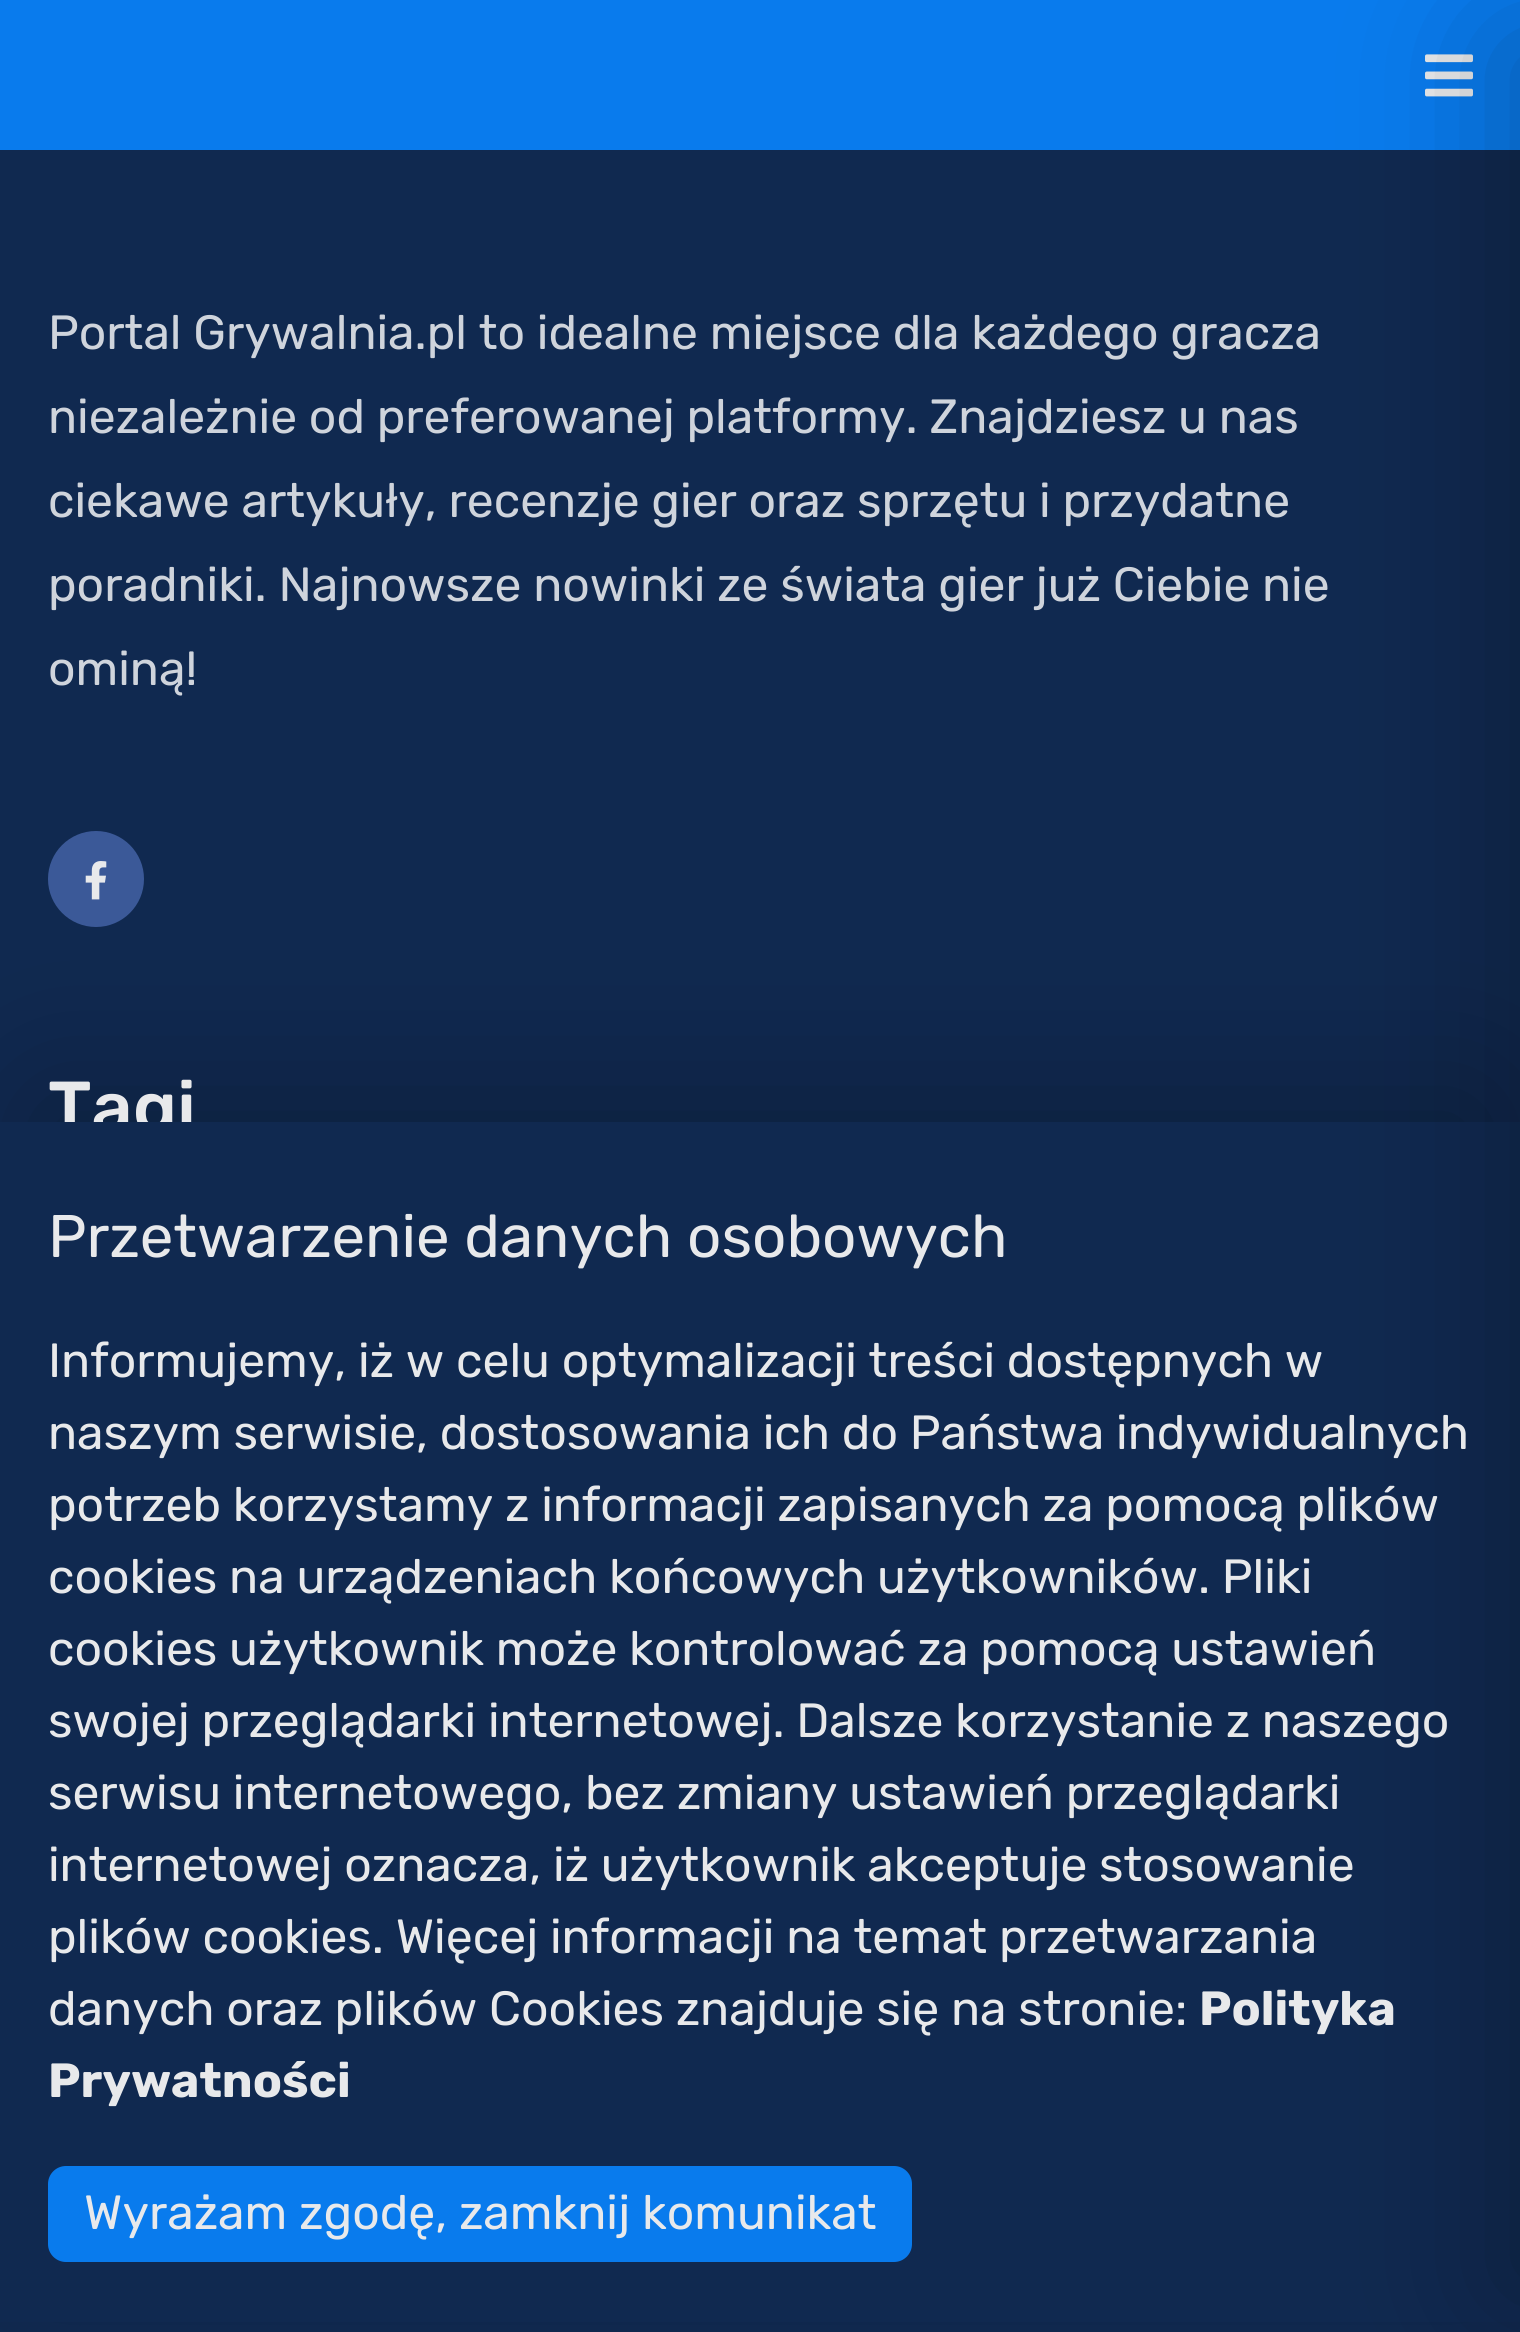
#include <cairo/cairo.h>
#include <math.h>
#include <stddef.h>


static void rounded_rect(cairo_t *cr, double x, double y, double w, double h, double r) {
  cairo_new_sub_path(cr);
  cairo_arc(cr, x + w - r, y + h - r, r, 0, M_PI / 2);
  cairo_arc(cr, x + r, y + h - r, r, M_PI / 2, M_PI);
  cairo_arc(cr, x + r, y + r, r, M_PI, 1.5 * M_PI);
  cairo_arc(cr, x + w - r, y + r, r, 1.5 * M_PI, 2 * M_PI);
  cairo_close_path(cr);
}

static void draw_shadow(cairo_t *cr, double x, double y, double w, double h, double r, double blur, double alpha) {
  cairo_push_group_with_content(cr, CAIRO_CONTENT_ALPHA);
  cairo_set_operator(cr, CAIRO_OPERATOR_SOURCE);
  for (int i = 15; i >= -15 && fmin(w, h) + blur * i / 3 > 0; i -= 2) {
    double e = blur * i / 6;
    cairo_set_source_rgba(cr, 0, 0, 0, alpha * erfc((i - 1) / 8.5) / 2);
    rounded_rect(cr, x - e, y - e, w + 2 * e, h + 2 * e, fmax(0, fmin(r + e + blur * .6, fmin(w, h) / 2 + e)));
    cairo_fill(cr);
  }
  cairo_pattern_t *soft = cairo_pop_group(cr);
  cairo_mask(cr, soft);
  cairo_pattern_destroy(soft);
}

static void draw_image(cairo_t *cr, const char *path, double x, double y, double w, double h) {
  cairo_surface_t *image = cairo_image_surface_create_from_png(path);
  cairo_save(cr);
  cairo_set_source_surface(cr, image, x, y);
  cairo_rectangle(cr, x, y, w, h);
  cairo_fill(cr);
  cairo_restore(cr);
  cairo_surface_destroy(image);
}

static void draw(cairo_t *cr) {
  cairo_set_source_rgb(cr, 16 / 255.0, 41 / 255.0, 80 / 255.0);
  cairo_paint(cr);
  cairo_set_source_rgb(cr, 9 / 255.0, 123 / 255.0, 237 / 255.0);
  cairo_rectangle(cr, 0, 0, 1520, 150);
  cairo_fill(cr);
  draw_image(cr, "images/1.png", 1425, 54, 48, 43);
  cairo_set_source_rgb(cr, 59 / 255.0, 89 / 255.0, 152 / 255.0);
  cairo_arc(cr, 96, 879, 48, 0, 2 * M_PI);
  cairo_fill(cr);
  draw_image(cr, "images/2.png", 85, 861, 22, 39);
  cairo_set_source_rgb(cr, 0, 0, 0);
  draw_shadow(cr, 36, 1098, 1449, 1140, 0, 75, 0.25);
  cairo_select_font_face(cr, "Rubik", CAIRO_FONT_SLANT_NORMAL, CAIRO_FONT_WEIGHT_NORMAL);
  cairo_set_font_size(cr, 48);
  cairo_set_source_rgb(cr, 207 / 255.0, 212 / 255.0, 220 / 255.0);
  cairo_move_to(cr, 48, 349);
  cairo_show_text(cr, "Portal Grywalnia.pl to idealne miejsce dla każdego gracza");
  cairo_move_to(cr, 48, 433);
  cairo_show_text(cr, "niezależnie od preferowanej platformy. Znajdziesz u nas");
  cairo_move_to(cr, 48, 517);
  cairo_show_text(cr, "ciekawe artykuły, recenzje gier oraz sprzętu i przydatne");
  cairo_move_to(cr, 48, 601);
  cairo_show_text(cr, "poradniki. Najnowsze nowinki ze świata gier już Ciebie nie");
  cairo_move_to(cr, 48, 685);
  cairo_show_text(cr, "ominą!");
  cairo_select_font_face(cr, "Rubik Medium", CAIRO_FONT_SLANT_NORMAL, CAIRO_FONT_WEIGHT_NORMAL);
  cairo_set_font_size(cr, 72);
  cairo_set_source_rgb(cr, 232 / 255.0, 233 / 255.0, 235 / 255.0);
  cairo_move_to(cr, 48, 1132);
  cairo_show_text(cr, "Tagi");
  cairo_set_source_rgb(cr, 16 / 255.0, 41 / 255.0, 80 / 255.0);
  cairo_rectangle(cr, 0, 1122, 1520, 1200);
  cairo_fill(cr);
  cairo_set_source_rgb(cr, 0, 0, 0);
  draw_shadow(cr, 1497, 36, 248, 2262, 0, 75, 0.25);
  cairo_select_font_face(cr, "Rubik", CAIRO_FONT_SLANT_NORMAL, CAIRO_FONT_WEIGHT_NORMAL);
  cairo_set_font_size(cr, 60);
  cairo_set_source_rgb(cr, 232 / 255.0, 233 / 255.0, 235 / 255.0);
  cairo_move_to(cr, 48, 1257);
  cairo_show_text(cr, "Przetwarzenie danych osobowych");
  cairo_set_font_size(cr, 48);
  cairo_move_to(cr, 48, 1377);
  cairo_show_text(cr, "Informujemy, iż w celu optymalizacji treści dostępnych w");
  cairo_move_to(cr, 48, 1449);
  cairo_show_text(cr, "naszym serwisie, dostosowania ich do Państwa indywidualnych");
  cairo_move_to(cr, 48, 1521);
  cairo_show_text(cr, "potrzeb korzystamy z informacji zapisanych za pomocą plików");
  cairo_move_to(cr, 48, 1593);
  cairo_show_text(cr, "cookies na urządzeniach końcowych użytkowników. Pliki");
  cairo_move_to(cr, 48, 1665);
  cairo_show_text(cr, "cookies użytkownik może kontrolować za pomocą ustawień");
  cairo_move_to(cr, 48, 1737);
  cairo_show_text(cr, "swojej przeglądarki internetowej. Dalsze korzystanie z naszego");
  cairo_move_to(cr, 48, 1809);
  cairo_show_text(cr, "serwisu internetowego, bez zmiany ustawień przeglądarki");
  cairo_move_to(cr, 48, 1881);
  cairo_show_text(cr, "internetowej oznacza, iż użytkownik akceptuje stosowanie");
  cairo_move_to(cr, 48, 1953);
  cairo_show_text(cr, "plików cookies. Więcej informacji na temat przetwarzania");
  cairo_move_to(cr, 48, 2025);
  cairo_show_text(cr, "danych oraz plików Cookies znajduje się na stronie:");
  cairo_select_font_face(cr, "Rubik", CAIRO_FONT_SLANT_NORMAL, CAIRO_FONT_WEIGHT_BOLD);
  cairo_move_to(cr, 1199, 2025);
  cairo_show_text(cr, "Polityka");
  cairo_move_to(cr, 48, 2097);
  cairo_show_text(cr, "Prywatności");
  cairo_set_source_rgb(cr, 9 / 255.0, 123 / 255.0, 237 / 255.0);
  rounded_rect(cr, 48, 2166, 864, 96, 18);
  cairo_fill(cr);
  cairo_select_font_face(cr, "Rubik", CAIRO_FONT_SLANT_NORMAL, CAIRO_FONT_WEIGHT_NORMAL);
  cairo_set_source_rgb(cr, 232 / 255.0, 233 / 255.0, 235 / 255.0);
  cairo_move_to(cr, 84, 2229);
  cairo_show_text(cr, "Wyrażam zgodę, zamknij komunikat");
}

int main(void) {
  cairo_surface_t *surface = cairo_image_surface_create(CAIRO_FORMAT_RGB24, 1520, 2332);
  cairo_t *cr = cairo_create(surface);
  cairo_font_options_t *options = cairo_font_options_create();
  cairo_font_options_set_hint_metrics(options, CAIRO_HINT_METRICS_OFF);
  cairo_font_options_set_hint_style(options, CAIRO_HINT_STYLE_NONE);
  cairo_set_font_options(cr, options);
  cairo_set_miter_limit(cr, 4);
  draw(cr);
  cairo_surface_write_to_png(surface, "out.png");
  cairo_font_options_destroy(options);
  cairo_destroy(cr);
  cairo_surface_destroy(surface);
  return 0;
}
